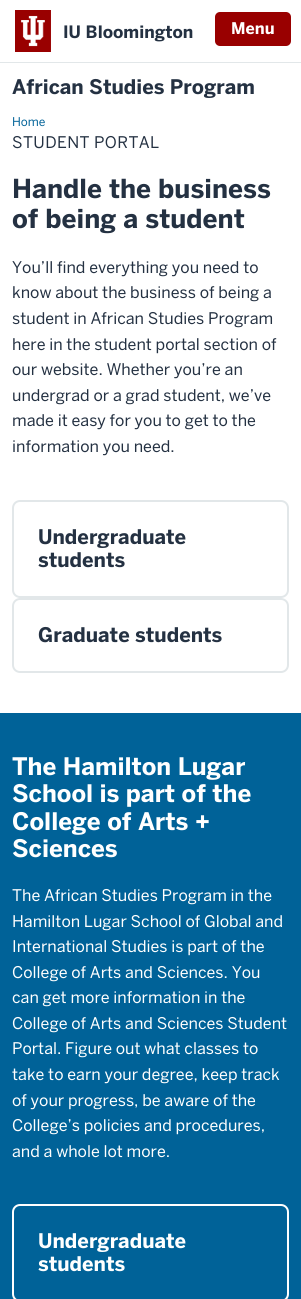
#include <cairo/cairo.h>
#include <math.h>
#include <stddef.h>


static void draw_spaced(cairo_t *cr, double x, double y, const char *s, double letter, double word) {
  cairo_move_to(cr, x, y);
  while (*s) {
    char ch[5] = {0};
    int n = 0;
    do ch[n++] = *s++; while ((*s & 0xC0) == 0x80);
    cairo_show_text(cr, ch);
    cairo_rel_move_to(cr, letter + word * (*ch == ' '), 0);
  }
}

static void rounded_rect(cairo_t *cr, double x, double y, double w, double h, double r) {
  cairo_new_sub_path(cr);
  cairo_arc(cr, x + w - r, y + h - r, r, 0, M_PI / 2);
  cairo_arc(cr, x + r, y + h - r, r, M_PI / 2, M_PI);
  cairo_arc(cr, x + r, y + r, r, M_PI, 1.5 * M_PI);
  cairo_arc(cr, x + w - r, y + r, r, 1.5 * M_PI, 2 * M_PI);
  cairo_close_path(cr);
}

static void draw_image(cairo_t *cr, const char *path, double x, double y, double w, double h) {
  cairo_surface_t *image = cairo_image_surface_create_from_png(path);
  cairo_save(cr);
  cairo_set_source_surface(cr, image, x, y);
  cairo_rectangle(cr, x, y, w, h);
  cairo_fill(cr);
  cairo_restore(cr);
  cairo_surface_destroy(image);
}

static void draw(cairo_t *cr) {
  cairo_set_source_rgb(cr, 1, 1, 1);
  cairo_paint(cr);
  cairo_set_source_rgb(cr, 226 / 255.0, 231 / 255.0, 233 / 255.0);
  cairo_rectangle(cr, 0, 62, 301, 1);
  cairo_fill(cr);
  draw_image(cr, "images/1.png", 15, 10, 36, 42);
  cairo_set_source_rgb(cr, 153 / 255.0, 0, 0);
  rounded_rect(cr, 215, 12, 76, 34, 5);
  cairo_fill(cr);
  rounded_rect(cr, 13, 501, 275, 96, 7);
  cairo_set_source_rgb(cr, 226 / 255.0, 231 / 255.0, 233 / 255.0);
  cairo_stroke(cr);
  rounded_rect(cr, 13, 599, 275, 73, 7);
  cairo_stroke(cr);
  cairo_set_source_rgb(cr, 0, 98 / 255.0, 152 / 255.0);
  cairo_rectangle(cr, 0, 713, 301, 586);
  cairo_fill(cr);
  rounded_rect(cr, 13, 1205, 275, 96, 7);
  cairo_set_source_rgb(cr, 1, 1, 1);
  cairo_stroke(cr);
  cairo_select_font_face(cr, "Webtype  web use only", CAIRO_FONT_SLANT_NORMAL, CAIRO_FONT_WEIGHT_BOLD);
  cairo_set_font_size(cr, 17);
  cairo_set_source_rgb(cr, 36 / 255.0, 49 / 255.0, 66 / 255.0);
  cairo_move_to(cr, 63, 38);
  cairo_show_text(cr, "IU Bloomington");
  cairo_set_font_size(cr, 16);
  cairo_set_source_rgb(cr, 1, 1, 1);
  cairo_move_to(cr, 231, 34);
  cairo_show_text(cr, "Menu");
  cairo_set_font_size(cr, 20);
  cairo_set_source_rgb(cr, 36 / 255.0, 49 / 255.0, 66 / 255.0);
  cairo_move_to(cr, 12, 94);
  cairo_show_text(cr, "African Studies Program");
  cairo_select_font_face(cr, "Webtype  web use only", CAIRO_FONT_SLANT_NORMAL, CAIRO_FONT_WEIGHT_NORMAL);
  cairo_set_font_size(cr, 12);
  cairo_set_source_rgb(cr, 0, 98 / 255.0, 152 / 255.0);
  cairo_move_to(cr, 12, 126);
  cairo_show_text(cr, "Home");
  cairo_set_font_size(cr, 16);
  cairo_set_source_rgb(cr, 36 / 255.0, 49 / 255.0, 66 / 255.0);
  draw_spaced(cr, 12, 148, "STUDENT PORTAL", 0.4, 0);
  cairo_select_font_face(cr, "Webtype  web use only", CAIRO_FONT_SLANT_NORMAL, CAIRO_FONT_WEIGHT_BOLD);
  cairo_set_font_size(cr, 26);
  cairo_move_to(cr, 12, 198);
  cairo_show_text(cr, "Handle the business");
  cairo_move_to(cr, 12, 228);
  cairo_show_text(cr, "of being a student");
  cairo_select_font_face(cr, "Webtype  web use only", CAIRO_FONT_SLANT_NORMAL, CAIRO_FONT_WEIGHT_NORMAL);
  cairo_set_font_size(cr, 16);
  cairo_move_to(cr, 12, 273);
  cairo_show_text(cr, "You’ll find everything you need to");
  cairo_move_to(cr, 12, 298);
  cairo_show_text(cr, "know about the business of being a");
  cairo_move_to(cr, 12, 324);
  cairo_show_text(cr, "student in African Studies Program");
  cairo_move_to(cr, 12, 350);
  cairo_show_text(cr, "here in the student portal section of");
  cairo_move_to(cr, 12, 375);
  cairo_show_text(cr, "our website. Whether you’re an");
  cairo_move_to(cr, 12, 401);
  cairo_show_text(cr, "undergrad or a grad student, we’ve");
  cairo_move_to(cr, 12, 426);
  cairo_show_text(cr, "made it easy for you to get to the");
  cairo_move_to(cr, 12, 452);
  cairo_show_text(cr, "information you need.");
  cairo_select_font_face(cr, "Webtype  web use only", CAIRO_FONT_SLANT_NORMAL, CAIRO_FONT_WEIGHT_BOLD);
  cairo_set_font_size(cr, 20);
  cairo_move_to(cr, 38, 544);
  cairo_show_text(cr, "Undergraduate");
  cairo_move_to(cr, 38, 567);
  cairo_show_text(cr, "students");
  cairo_move_to(cr, 38, 642);
  cairo_show_text(cr, "Graduate students");
  cairo_set_font_size(cr, 24);
  cairo_set_source_rgb(cr, 1, 1, 1);
  cairo_move_to(cr, 12, 775);
  cairo_show_text(cr, "The Hamilton Lugar");
  cairo_move_to(cr, 12, 802);
  cairo_show_text(cr, "School is part of the");
  cairo_move_to(cr, 12, 830);
  cairo_show_text(cr, "College of Arts +");
  cairo_move_to(cr, 12, 857);
  cairo_show_text(cr, "Sciences");
  cairo_select_font_face(cr, "Webtype  web use only", CAIRO_FONT_SLANT_NORMAL, CAIRO_FONT_WEIGHT_NORMAL);
  cairo_set_font_size(cr, 16);
  cairo_move_to(cr, 12, 901);
  cairo_show_text(cr, "The African Studies Program in the");
  cairo_move_to(cr, 12, 927);
  cairo_show_text(cr, "Hamilton Lugar School of Global and");
  cairo_move_to(cr, 12, 952);
  cairo_show_text(cr, "International Studies is part of the");
  cairo_move_to(cr, 12, 978);
  cairo_show_text(cr, "College of Arts and Sciences. You");
  cairo_move_to(cr, 12, 1003);
  cairo_show_text(cr, "can get more information in the");
  cairo_move_to(cr, 12, 1029);
  cairo_show_text(cr, "College of Arts and Sciences Student");
  cairo_move_to(cr, 12, 1054);
  cairo_show_text(cr, "Portal. Figure out what classes to");
  cairo_move_to(cr, 12, 1080);
  cairo_show_text(cr, "take to earn your degree, keep track");
  cairo_move_to(cr, 12, 1106);
  cairo_show_text(cr, "of your progress, be aware of the");
  cairo_move_to(cr, 12, 1131);
  cairo_show_text(cr, "College’s policies and procedures,");
  cairo_move_to(cr, 12, 1157);
  cairo_show_text(cr, "and a whole lot more.");
  cairo_select_font_face(cr, "Webtype  web use only", CAIRO_FONT_SLANT_NORMAL, CAIRO_FONT_WEIGHT_BOLD);
  cairo_set_font_size(cr, 20);
  cairo_move_to(cr, 38, 1248);
  cairo_show_text(cr, "Undergraduate");
  cairo_move_to(cr, 38, 1271);
  cairo_show_text(cr, "students");
}

int main(void) {
  cairo_surface_t *surface = cairo_image_surface_create(CAIRO_FORMAT_RGB24, 301, 1299);
  cairo_t *cr = cairo_create(surface);
  cairo_font_options_t *options = cairo_font_options_create();
  cairo_font_options_set_hint_metrics(options, CAIRO_HINT_METRICS_OFF);
  cairo_font_options_set_hint_style(options, CAIRO_HINT_STYLE_NONE);
  cairo_set_font_options(cr, options);
  cairo_set_miter_limit(cr, 4);
  draw(cr);
  cairo_surface_write_to_png(surface, "out.png");
  cairo_font_options_destroy(options);
  cairo_destroy(cr);
  cairo_surface_destroy(surface);
  return 0;
}
